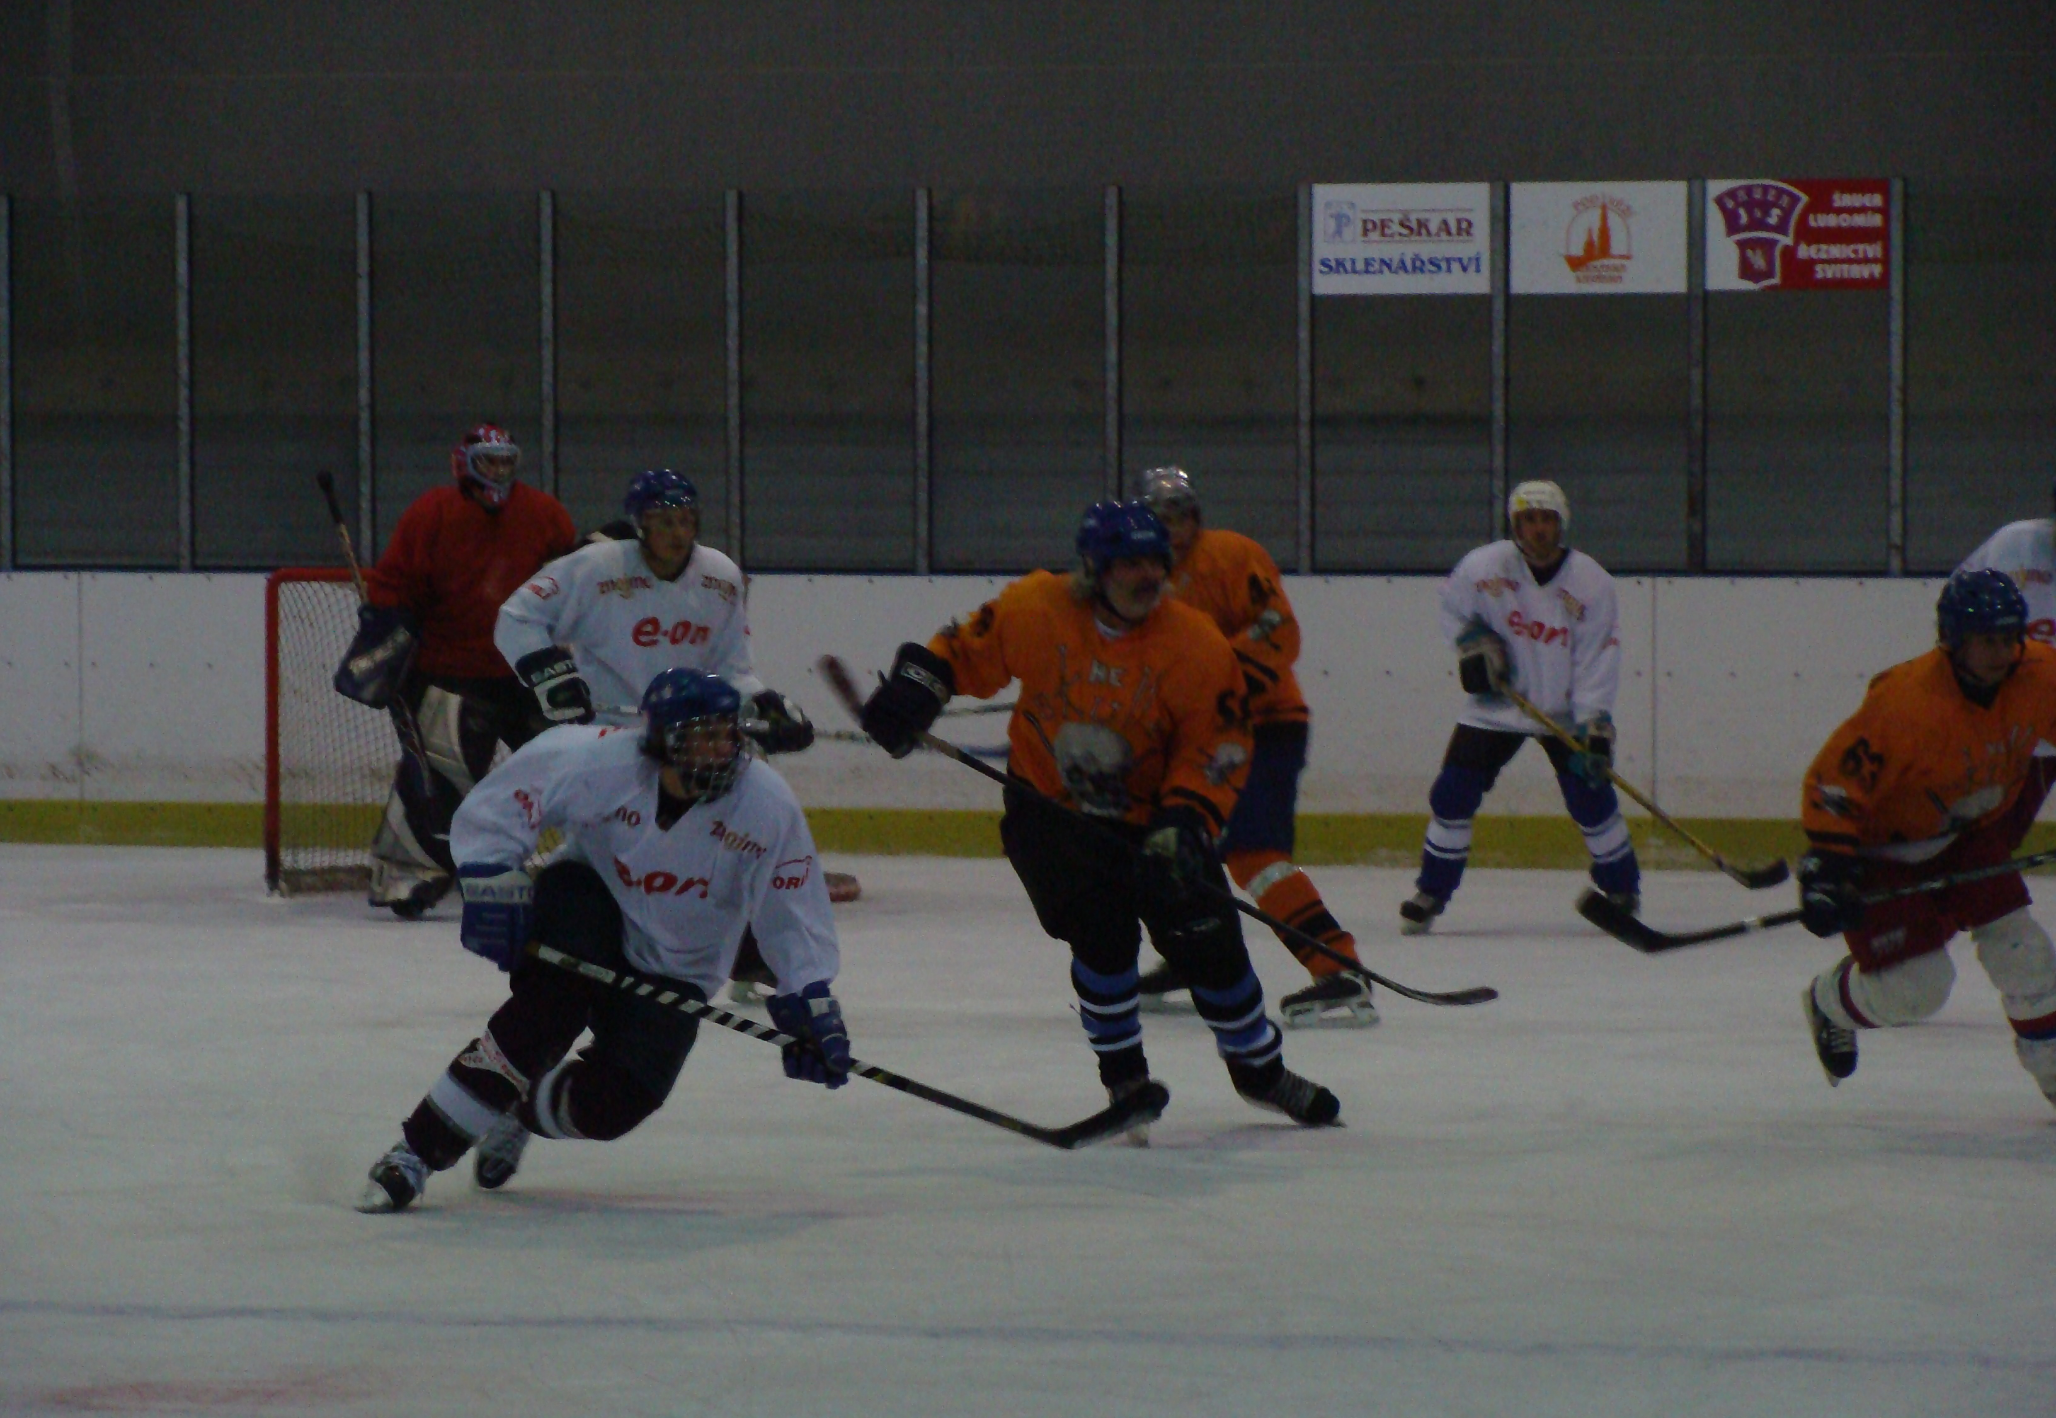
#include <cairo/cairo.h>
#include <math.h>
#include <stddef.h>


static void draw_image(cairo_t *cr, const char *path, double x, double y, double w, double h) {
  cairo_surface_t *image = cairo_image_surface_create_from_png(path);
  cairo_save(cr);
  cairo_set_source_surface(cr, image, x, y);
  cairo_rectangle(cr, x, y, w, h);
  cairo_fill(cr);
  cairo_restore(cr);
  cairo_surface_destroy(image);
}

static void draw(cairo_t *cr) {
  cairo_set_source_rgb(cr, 1, 1, 1);
  cairo_paint(cr);
  draw_image(cr, "images/1.png", 0, 0, 2056, 1418);
}

int main(void) {
  cairo_surface_t *surface = cairo_image_surface_create(CAIRO_FORMAT_RGB24, 2056, 1418);
  cairo_t *cr = cairo_create(surface);
  cairo_font_options_t *options = cairo_font_options_create();
  cairo_font_options_set_hint_metrics(options, CAIRO_HINT_METRICS_OFF);
  cairo_font_options_set_hint_style(options, CAIRO_HINT_STYLE_NONE);
  cairo_set_font_options(cr, options);
  cairo_set_miter_limit(cr, 4);
  draw(cr);
  cairo_surface_write_to_png(surface, "out.png");
  cairo_font_options_destroy(options);
  cairo_destroy(cr);
  cairo_surface_destroy(surface);
  return 0;
}
